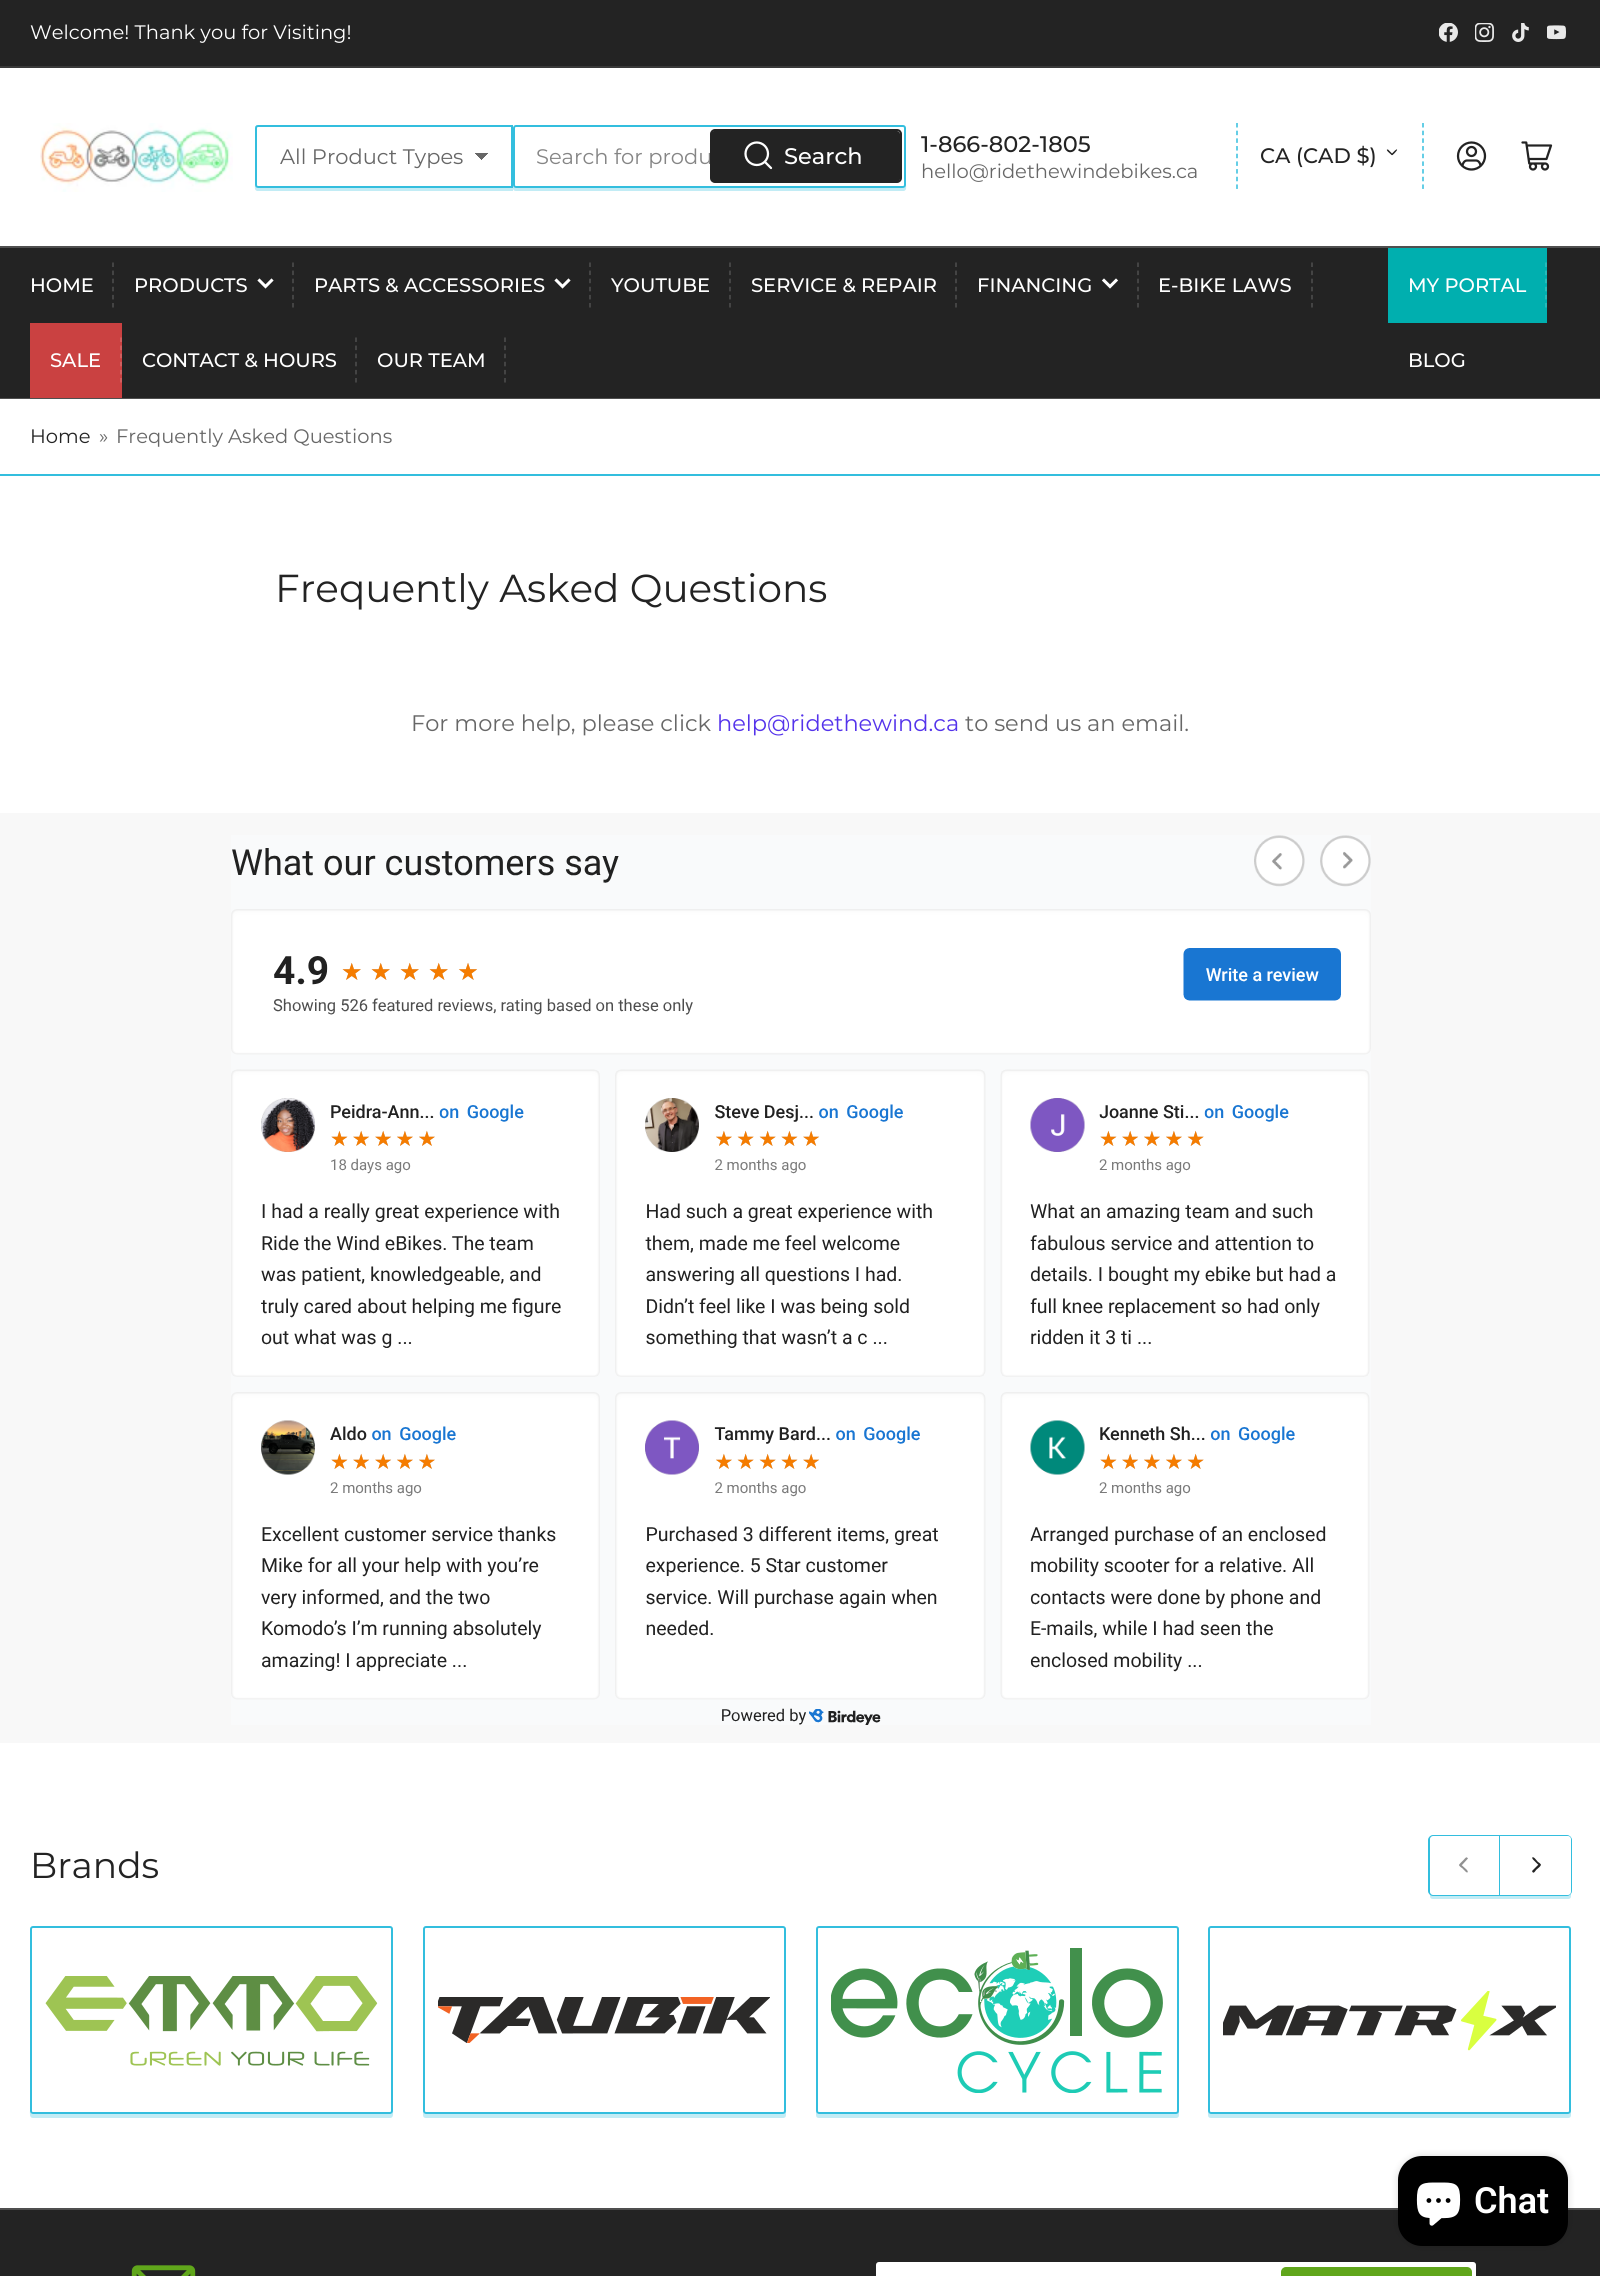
#include <cairo/cairo.h>
#include <math.h>
#include <stddef.h>


static void rounded_rect(cairo_t *cr, double x, double y, double w, double h, double r) {
  cairo_new_sub_path(cr);
  cairo_arc(cr, x + w - r, y + h - r, r, 0, M_PI / 2);
  cairo_arc(cr, x + r, y + h - r, r, M_PI / 2, M_PI);
  cairo_arc(cr, x + r, y + r, r, M_PI, 1.5 * M_PI);
  cairo_arc(cr, x + w - r, y + r, r, 1.5 * M_PI, 2 * M_PI);
  cairo_close_path(cr);
}

static void draw_shadow(cairo_t *cr, double x, double y, double w, double h, double r, double blur, double alpha) {
  cairo_push_group_with_content(cr, CAIRO_CONTENT_ALPHA);
  cairo_set_operator(cr, CAIRO_OPERATOR_SOURCE);
  for (int i = 15; i >= -15 && fmin(w, h) + blur * i / 3 > 0; i -= 2) {
    double e = blur * i / 6;
    cairo_set_source_rgba(cr, 0, 0, 0, alpha * erfc((i - 1) / 8.5) / 2);
    rounded_rect(cr, x - e, y - e, w + 2 * e, h + 2 * e, fmax(0, fmin(r + e + blur * .6, fmin(w, h) / 2 + e)));
    cairo_fill(cr);
  }
  cairo_pattern_t *soft = cairo_pop_group(cr);
  cairo_mask(cr, soft);
  cairo_pattern_destroy(soft);
}

static void draw_image(cairo_t *cr, const char *path, double x, double y, double w, double h) {
  cairo_surface_t *image = cairo_image_surface_create_from_png(path);
  cairo_save(cr);
  cairo_set_source_surface(cr, image, x, y);
  cairo_rectangle(cr, x, y, w, h);
  cairo_fill(cr);
  cairo_restore(cr);
  cairo_surface_destroy(image);
}

static void draw(cairo_t *cr) {
  cairo_pattern_t *gradient;
  cairo_set_source_rgb(cr, 1, 1, 1);
  cairo_paint(cr);
  cairo_set_source_rgb(cr, 35 / 255.0, 35 / 255.0, 35 / 255.0);
  cairo_rectangle(cr, 0, 0, 1600, 66);
  cairo_fill(cr);
  cairo_set_source_rgb(cr, 57 / 255.0, 57 / 255.0, 57 / 255.0);
  cairo_rectangle(cr, 0, 66, 1600, 2);
  cairo_fill(cr);
  draw_image(cr, "images/1.png", 1439, 23, 19, 19);
  draw_image(cr, "images/2.png", 1475, 23, 19, 19);
  draw_image(cr, "images/3.png", 1512, 23, 17, 19);
  draw_image(cr, "images/4.png", 1547, 25, 19, 15);
  draw_image(cr, "images/5.png", 40, 123, 193, 69);
  cairo_set_source_rgb(cr, 194 / 255.0, 236 / 255.0, 245 / 255.0);
  cairo_new_path(cr);
  cairo_move_to(cr, 513, 184);
  cairo_curve_to(cr, 513, 187, 512, 191, 516, 191);
  cairo_line_to(cr, 904, 191);
  cairo_curve_to(cr, 907, 190, 906, 187, 906, 184);
  cairo_curve_to(cr, 906, 186, 905, 188, 903, 188);
  cairo_line_to(cr, 516, 188);
  cairo_curve_to(cr, 514, 188, 513, 186, 513, 184);
  cairo_close_path(cr);
  cairo_fill(cr);
  rounded_rect(cr, 256, 126, 256, 61, 2);
  cairo_set_source_rgb(cr, 51 / 255.0, 190 / 255.0, 222 / 255.0);
  cairo_stroke(cr);
  cairo_set_source_rgba(cr, 51 / 255.0, 190 / 255.0, 222 / 255.0, 0.3);
  cairo_new_path(cr);
  cairo_move_to(cr, 255, 184);
  cairo_curve_to(cr, 255, 187, 254, 190, 257, 191);
  cairo_line_to(cr, 513, 191);
  cairo_line_to(cr, 513, 188);
  cairo_line_to(cr, 258, 188);
  cairo_curve_to(cr, 256, 188, 255, 186, 255, 184);
  cairo_close_path(cr);
  cairo_fill(cr);
  cairo_set_source_rgb(cr, 1, 1, 1);
  cairo_new_path(cr);
  cairo_move_to(cr, 258, 125);
  cairo_line_to(cr, 513, 125);
  cairo_line_to(cr, 513, 188);
  cairo_line_to(cr, 258, 188);
  cairo_curve_to(cr, 256.5, 188, 255, 186.5, 255, 185);
  cairo_line_to(cr, 255, 128);
  cairo_curve_to(cr, 255, 126.5, 256.5, 125, 258, 125);
  cairo_close_path(cr);
  cairo_fill(cr);
  gradient = cairo_pattern_create_linear(482, 152, 489, 160);
  cairo_pattern_add_color_stop_rgba(gradient, 0.5, 103 / 255.0, 103 / 255.0, 103 / 255.0, 1);
  cairo_pattern_add_color_stop_rgba(gradient, 0.5, 1, 1, 1, 1);
  cairo_set_source(cr, gradient);
  cairo_pattern_destroy(gradient);
  cairo_rectangle(cr, 482, 153, 6, 8);
  cairo_fill(cr);
  gradient = cairo_pattern_create_linear(474, 160, 482, 152);
  cairo_pattern_add_color_stop_rgba(gradient, 0.5, 1, 1, 1, 1);
  cairo_pattern_add_color_stop_rgba(gradient, 0.5, 103 / 255.0, 103 / 255.0, 103 / 255.0, 1);
  cairo_set_source(cr, gradient);
  cairo_pattern_destroy(gradient);
  cairo_rectangle(cr, 474, 153, 8, 7);
  cairo_fill(cr);
  cairo_new_path(cr);
  cairo_move_to(cr, 258, 126);
  cairo_line_to(cr, 512, 126);
  cairo_line_to(cr, 512, 187);
  cairo_line_to(cr, 258, 187);
  cairo_curve_to(cr, 257, 187, 256, 186, 256, 185);
  cairo_line_to(cr, 256, 128);
  cairo_curve_to(cr, 256, 127, 257, 126, 258, 126);
  cairo_close_path(cr);
  cairo_set_source_rgb(cr, 51 / 255.0, 190 / 255.0, 222 / 255.0);
  cairo_stroke(cr);
  cairo_set_source_rgb(cr, 1, 1, 1);
  rounded_rect(cr, 514, 126, 391, 61, 2);
  cairo_fill_preserve(cr);
  cairo_set_source_rgb(cr, 51 / 255.0, 190 / 255.0, 222 / 255.0);
  cairo_stroke(cr);
  cairo_new_path(cr);
  cairo_move_to(cr, 1423, 123);
  cairo_line_to(cr, 1423, 189);
  cairo_set_line_width(cr, 1.5);
  cairo_set_dash(cr, (double[]){4.5, 3.18}, 2, 0);
  cairo_stroke(cr);
  cairo_new_path(cr);
  cairo_move_to(cr, 1237, 123);
  cairo_line_to(cr, 1237, 189);
  cairo_stroke(cr);
  cairo_set_source_rgb(cr, 35 / 255.0, 35 / 255.0, 35 / 255.0);
  cairo_new_path(cr);
  cairo_move_to(cr, 1388, 149.5);
  cairo_line_to(cr, 1391.5, 153);
  cairo_curve_to(cr, 1393.5, 155, 1392.5, 156, 1390.5, 154);
  cairo_curve_to(cr, 1390, 153.5, 1386, 150.5, 1387, 149.5);
  cairo_close_path(cr);
  cairo_fill(cr);
  cairo_new_path(cr);
  cairo_move_to(cr, 1391.5, 154);
  cairo_line_to(cr, 1395, 150.5);
  cairo_curve_to(cr, 1397, 148.5, 1398, 149.5, 1396, 151.5);
  cairo_curve_to(cr, 1395.5, 152, 1392.5, 156, 1391.5, 155);
  cairo_close_path(cr);
  cairo_fill(cr);
  draw_image(cr, "images/7.png", 1456, 141, 31, 30);
  draw_image(cr, "images/8.png", 1521, 141, 32, 30);
  cairo_rectangle(cr, 0, 248, 1600, 150);
  cairo_fill(cr);
  cairo_set_source_rgb(cr, 79 / 255.0, 79 / 255.0, 79 / 255.0);
  cairo_rectangle(cr, 0, 398, 1600, 1);
  cairo_fill(cr);
  cairo_rectangle(cr, 0, 246, 1600, 2);
  cairo_fill(cr);
  cairo_new_path(cr);
  cairo_move_to(cr, 113, 262.5);
  cairo_line_to(cr, 113, 307.5);
  cairo_set_dash(cr, (double[]){4.5, 3.6}, 2, 0);
  cairo_stroke(cr);
  cairo_new_path(cr);
  cairo_move_to(cr, 271.5, 280.5);
  cairo_line_to(cr, 265.5, 286.5);
  cairo_line_to(cr, 259.5, 280.5);
  cairo_set_source_rgb(cr, 1, 1, 1);
  cairo_set_line_width(cr, 3);
  cairo_set_line_cap(cr, CAIRO_LINE_CAP_SQUARE);
  cairo_set_dash(cr, NULL, 0, 0);
  cairo_stroke(cr);
  cairo_new_path(cr);
  cairo_move_to(cr, 293, 262.5);
  cairo_line_to(cr, 293, 307.5);
  cairo_set_source_rgb(cr, 79 / 255.0, 79 / 255.0, 79 / 255.0);
  cairo_set_line_width(cr, 1.5);
  cairo_set_line_cap(cr, CAIRO_LINE_CAP_BUTT);
  cairo_set_dash(cr, (double[]){4.5, 3.6}, 2, 0);
  cairo_stroke(cr);
  cairo_new_path(cr);
  cairo_move_to(cr, 568.5, 280.5);
  cairo_line_to(cr, 562.5, 286.5);
  cairo_line_to(cr, 556.5, 280.5);
  cairo_set_source_rgb(cr, 1, 1, 1);
  cairo_set_line_width(cr, 3);
  cairo_set_line_cap(cr, CAIRO_LINE_CAP_SQUARE);
  cairo_set_dash(cr, NULL, 0, 0);
  cairo_stroke(cr);
  cairo_new_path(cr);
  cairo_move_to(cr, 590, 262.5);
  cairo_line_to(cr, 590, 307.5);
  cairo_set_source_rgb(cr, 79 / 255.0, 79 / 255.0, 79 / 255.0);
  cairo_set_line_width(cr, 1.5);
  cairo_set_line_cap(cr, CAIRO_LINE_CAP_BUTT);
  cairo_set_dash(cr, (double[]){4.5, 3.6}, 2, 0);
  cairo_stroke(cr);
  cairo_new_path(cr);
  cairo_move_to(cr, 730, 262.5);
  cairo_line_to(cr, 730, 307.5);
  cairo_stroke(cr);
  cairo_new_path(cr);
  cairo_move_to(cr, 956, 262.5);
  cairo_line_to(cr, 956, 307.5);
  cairo_stroke(cr);
  cairo_new_path(cr);
  cairo_move_to(cr, 1116, 280.5);
  cairo_line_to(cr, 1110, 286.5);
  cairo_line_to(cr, 1104, 280.5);
  cairo_set_source_rgb(cr, 1, 1, 1);
  cairo_set_line_width(cr, 3);
  cairo_set_line_cap(cr, CAIRO_LINE_CAP_SQUARE);
  cairo_set_dash(cr, NULL, 0, 0);
  cairo_stroke(cr);
  cairo_new_path(cr);
  cairo_move_to(cr, 1138, 262.5);
  cairo_line_to(cr, 1138, 307.5);
  cairo_set_source_rgb(cr, 79 / 255.0, 79 / 255.0, 79 / 255.0);
  cairo_set_line_width(cr, 1.5);
  cairo_set_line_cap(cr, CAIRO_LINE_CAP_BUTT);
  cairo_set_dash(cr, (double[]){4.5, 3.6}, 2, 0);
  cairo_stroke(cr);
  cairo_new_path(cr);
  cairo_move_to(cr, 1312, 262.5);
  cairo_line_to(cr, 1312, 307.5);
  cairo_stroke(cr);
  cairo_set_source_rgb(cr, 202 / 255.0, 65 / 255.0, 65 / 255.0);
  cairo_rectangle(cr, 30, 323, 92, 75);
  cairo_fill(cr);
  cairo_new_path(cr);
  cairo_move_to(cr, 121, 337.5);
  cairo_line_to(cr, 121, 382.5);
  cairo_set_source_rgb(cr, 213 / 255.0, 103 / 255.0, 103 / 255.0);
  cairo_stroke(cr);
  cairo_new_path(cr);
  cairo_move_to(cr, 356, 337.5);
  cairo_line_to(cr, 356, 382.5);
  cairo_set_source_rgb(cr, 79 / 255.0, 79 / 255.0, 79 / 255.0);
  cairo_stroke(cr);
  cairo_new_path(cr);
  cairo_move_to(cr, 505, 337.5);
  cairo_line_to(cr, 505, 382.5);
  cairo_stroke(cr);
  cairo_set_source_rgb(cr, 0, 175 / 255.0, 175 / 255.0);
  cairo_rectangle(cr, 1388, 248, 159, 75);
  cairo_fill(cr);
  cairo_new_path(cr);
  cairo_move_to(cr, 1546, 262.5);
  cairo_line_to(cr, 1546, 307.5);
  cairo_set_source_rgb(cr, 51 / 255.0, 191 / 255.0, 191 / 255.0);
  cairo_stroke(cr);
  cairo_set_source_rgb(cr, 51 / 255.0, 190 / 255.0, 222 / 255.0);
  cairo_rectangle(cr, 0, 474, 1600, 2);
  cairo_fill(cr);
  cairo_set_source_rgb(cr, 248 / 255.0, 248 / 255.0, 248 / 255.0);
  cairo_rectangle(cr, 0, 813, 1600, 930);
  cairo_fill(cr);
  draw_image(cr, "images/9.png", 231, 835, 1140, 890);
  cairo_set_source_rgb(cr, 194 / 255.0, 236 / 255.0, 245 / 255.0);
  cairo_new_path(cr);
  cairo_move_to(cr, 1430, 1893);
  cairo_line_to(cr, 1430, 1896);
  cairo_curve_to(cr, 1430, 1898, 1431, 1899, 1433, 1899);
  cairo_line_to(cr, 1500, 1899);
  cairo_line_to(cr, 1500, 1894);
  cairo_line_to(cr, 1432, 1894);
  cairo_close_path(cr);
  cairo_fill(cr);
  cairo_new_path(cr);
  cairo_move_to(cr, 1433, 1836);
  cairo_line_to(cr, 1501, 1836);
  cairo_line_to(cr, 1501, 1895);
  cairo_line_to(cr, 1433, 1895);
  cairo_curve_to(cr, 1431, 1895, 1429, 1893, 1429, 1891);
  cairo_line_to(cr, 1429, 1840);
  cairo_curve_to(cr, 1429, 1838, 1431, 1836, 1433, 1836);
  cairo_close_path(cr);
  cairo_set_source_rgb(cr, 51 / 255.0, 190 / 255.0, 222 / 255.0);
  cairo_set_line_width(cr, 2);
  cairo_set_dash(cr, NULL, 0, 0);
  cairo_stroke(cr);
  cairo_set_source_rgb(cr, 1, 1, 1);
  cairo_new_path(cr);
  cairo_move_to(cr, 1433, 1836);
  cairo_line_to(cr, 1500, 1836);
  cairo_line_to(cr, 1500, 1895);
  cairo_line_to(cr, 1433, 1895);
  cairo_curve_to(cr, 1431.5, 1895, 1430, 1893.5, 1430, 1892);
  cairo_line_to(cr, 1430, 1839);
  cairo_curve_to(cr, 1430, 1837.5, 1431.5, 1836, 1433, 1836);
  cairo_close_path(cr);
  cairo_fill(cr);
  cairo_set_source_rgb(cr, 145 / 255.0, 145 / 255.0, 145 / 255.0);
  cairo_new_path(cr);
  cairo_move_to(cr, 1467.5, 1859);
  cairo_line_to(cr, 1462.5, 1864.5);
  cairo_curve_to(cr, 1459.5, 1867, 1458, 1865.5, 1460.5, 1863);
  cairo_line_to(cr, 1464, 1859.5);
  cairo_curve_to(cr, 1464.5, 1859, 1466.5, 1856, 1467.5, 1858);
  cairo_curve_to(cr, 1468, 1858, 1468, 1859, 1467.5, 1859);
  cairo_close_path(cr);
  cairo_fill(cr);
  cairo_new_path(cr);
  cairo_move_to(cr, 1461, 1864.5);
  cairo_line_to(cr, 1466.5, 1869.5);
  cairo_curve_to(cr, 1469, 1872, 1467.5, 1874, 1465, 1871);
  cairo_line_to(cr, 1462, 1868);
  cairo_curve_to(cr, 1461, 1867.5, 1458, 1865.5, 1460, 1864);
  cairo_curve_to(cr, 1460.5, 1864, 1461, 1864, 1461, 1864.5);
  cairo_close_path(cr);
  cairo_fill(cr);
  cairo_set_source_rgba(cr, 51 / 255.0, 190 / 255.0, 222 / 255.0, 0.3);
  cairo_new_path(cr);
  cairo_move_to(cr, 1500, 1894);
  cairo_line_to(cr, 1500, 1899);
  cairo_line_to(cr, 1568, 1899);
  cairo_curve_to(cr, 1570, 1899, 1571, 1898, 1571, 1896);
  cairo_line_to(cr, 1571, 1844);
  cairo_line_to(cr, 1570, 1842);
  cairo_line_to(cr, 1570, 1892);
  cairo_curve_to(cr, 1570, 1893, 1569, 1894, 1568, 1894);
  cairo_close_path(cr);
  cairo_fill(cr);
  cairo_new_path(cr);
  cairo_move_to(cr, 1500, 1836);
  cairo_line_to(cr, 1567, 1836);
  cairo_curve_to(cr, 1569, 1836, 1571, 1838, 1571, 1840);
  cairo_line_to(cr, 1571, 1891);
  cairo_curve_to(cr, 1571, 1893, 1569, 1895, 1567, 1895);
  cairo_line_to(cr, 1500, 1895);
  cairo_close_path(cr);
  cairo_set_source_rgb(cr, 51 / 255.0, 190 / 255.0, 222 / 255.0);
  cairo_stroke(cr);
  cairo_set_source_rgb(cr, 1, 1, 1);
  cairo_new_path(cr);
  cairo_move_to(cr, 1500, 1836);
  cairo_line_to(cr, 1568, 1836);
  cairo_curve_to(cr, 1569.5, 1836, 1571, 1837.5, 1571, 1839);
  cairo_line_to(cr, 1571, 1892);
  cairo_curve_to(cr, 1571, 1893.5, 1569.5, 1895, 1568, 1895);
  cairo_line_to(cr, 1500, 1895);
  cairo_close_path(cr);
  cairo_fill(cr);
  cairo_set_source_rgb(cr, 35 / 255.0, 35 / 255.0, 35 / 255.0);
  cairo_new_path(cr);
  cairo_move_to(cr, 1532.5, 1870.5);
  cairo_line_to(cr, 1537.5, 1865.5);
  cairo_curve_to(cr, 1540.5, 1863, 1542, 1864.5, 1539.5, 1867);
  cairo_line_to(cr, 1536, 1870);
  cairo_curve_to(cr, 1535.5, 1871, 1533.5, 1874, 1532.5, 1872);
  cairo_curve_to(cr, 1532, 1871.5, 1532, 1871, 1532.5, 1870.5);
  cairo_close_path(cr);
  cairo_fill(cr);
  cairo_new_path(cr);
  cairo_move_to(cr, 1539, 1865.5);
  cairo_line_to(cr, 1533.5, 1860);
  cairo_curve_to(cr, 1531, 1857.5, 1532.5, 1856, 1535, 1858.5);
  cairo_line_to(cr, 1538, 1862);
  cairo_curve_to(cr, 1539, 1862.5, 1542, 1864.5, 1540, 1865.5);
  cairo_curve_to(cr, 1539.5, 1866, 1539, 1866, 1539, 1865.5);
  cairo_close_path(cr);
  cairo_fill(cr);
  cairo_set_source_rgb(cr, 194 / 255.0, 236 / 255.0, 245 / 255.0);
  cairo_new_path(cr);
  cairo_move_to(cr, 30, 2110);
  cairo_curve_to(cr, 30, 2113, 29, 2118, 33, 2118);
  cairo_line_to(cr, 390, 2118);
  cairo_curve_to(cr, 394, 2118, 393, 2113, 393, 2110);
  cairo_curve_to(cr, 393, 2112, 392, 2114, 390, 2114);
  cairo_line_to(cr, 33, 2114);
  cairo_curve_to(cr, 31, 2114, 30, 2112, 30, 2110);
  cairo_close_path(cr);
  cairo_fill(cr);
  cairo_set_source_rgb(cr, 1, 1, 1);
  rounded_rect(cr, 31, 1927, 361, 186, 2);
  cairo_fill_preserve(cr);
  cairo_set_source_rgb(cr, 51 / 255.0, 190 / 255.0, 222 / 255.0);
  cairo_stroke(cr);
  draw_image(cr, "images/10.png", 45, 1976, 333, 90);
  cairo_set_source_rgb(cr, 194 / 255.0, 236 / 255.0, 245 / 255.0);
  cairo_new_path(cr);
  cairo_move_to(cr, 423, 2112);
  cairo_line_to(cr, 423, 2115);
  cairo_curve_to(cr, 423, 2117, 424, 2118, 426, 2118);
  cairo_line_to(cr, 783, 2118);
  cairo_curve_to(cr, 785, 2118, 786, 2117, 786, 2115);
  cairo_line_to(cr, 786, 1934);
  cairo_line_to(cr, 786, 1933);
  cairo_line_to(cr, 786, 2110);
  cairo_curve_to(cr, 786, 2112, 784, 2114, 783, 2114);
  cairo_line_to(cr, 426, 2114);
  cairo_curve_to(cr, 424, 2114, 424, 2113, 423, 2112);
  cairo_close_path(cr);
  cairo_fill(cr);
  cairo_set_source_rgb(cr, 1, 1, 1);
  rounded_rect(cr, 424, 1927, 361, 186, 2);
  cairo_fill_preserve(cr);
  cairo_set_source_rgb(cr, 51 / 255.0, 190 / 255.0, 222 / 255.0);
  cairo_stroke(cr);
  draw_image(cr, "images/11.png", 438, 1997, 332, 46);
  cairo_set_source_rgb(cr, 194 / 255.0, 236 / 255.0, 245 / 255.0);
  cairo_new_path(cr);
  cairo_move_to(cr, 816, 2112);
  cairo_line_to(cr, 816, 2115);
  cairo_curve_to(cr, 816, 2117, 817, 2118, 819, 2118);
  cairo_line_to(cr, 1176, 2118);
  cairo_curve_to(cr, 1178, 2118, 1179, 2117, 1179, 2115);
  cairo_line_to(cr, 1179, 1934);
  cairo_line_to(cr, 1178, 1932);
  cairo_line_to(cr, 1178, 2110);
  cairo_curve_to(cr, 1178, 2112, 1177, 2114, 1175, 2114);
  cairo_line_to(cr, 818, 2114);
  cairo_curve_to(cr, 817, 2114, 817, 2113, 816, 2112);
  cairo_close_path(cr);
  cairo_fill(cr);
  cairo_set_source_rgb(cr, 1, 1, 1);
  rounded_rect(cr, 817, 1927, 361, 186, 2);
  cairo_fill_preserve(cr);
  cairo_set_source_rgb(cr, 51 / 255.0, 190 / 255.0, 222 / 255.0);
  cairo_stroke(cr);
  draw_image(cr, "images/12.png", 831, 1948, 332, 145);
  cairo_set_source_rgb(cr, 194 / 255.0, 236 / 255.0, 245 / 255.0);
  cairo_new_path(cr);
  cairo_move_to(cr, 1208, 2111);
  cairo_line_to(cr, 1208, 2115);
  cairo_curve_to(cr, 1208, 2117, 1209, 2118, 1211, 2118);
  cairo_line_to(cr, 1568, 2118);
  cairo_curve_to(cr, 1570, 2118, 1571, 2117, 1571, 2115);
  cairo_line_to(cr, 1571, 1933);
  cairo_line_to(cr, 1571, 2110);
  cairo_curve_to(cr, 1571, 2112, 1570, 2114, 1568, 2114);
  cairo_line_to(cr, 1211, 2114);
  cairo_curve_to(cr, 1210, 2114, 1208, 2113, 1208, 2111);
  cairo_close_path(cr);
  cairo_fill(cr);
  cairo_set_source_rgb(cr, 1, 1, 1);
  rounded_rect(cr, 1209, 1927, 361, 186, 2);
  cairo_fill_preserve(cr);
  cairo_set_source_rgb(cr, 51 / 255.0, 190 / 255.0, 222 / 255.0);
  cairo_stroke(cr);
  draw_image(cr, "images/13.png", 1223, 1991, 333, 60);
  cairo_set_source_rgb(cr, 35 / 255.0, 35 / 255.0, 35 / 255.0);
  cairo_rectangle(cr, 0, 2210, 1600, 66);
  cairo_fill(cr);
  cairo_set_source_rgb(cr, 79 / 255.0, 79 / 255.0, 79 / 255.0);
  cairo_rectangle(cr, 0, 2208, 1600, 2);
  cairo_fill(cr);
  draw_image(cr, "images/14.png", 131, 2265, 65, 11);
  cairo_set_source_rgb(cr, 1, 1, 1);
  rounded_rect(cr, 876, 2262, 600, 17, 3);
  cairo_fill(cr);
  rounded_rect(cr, 877, 2263, 598, 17, 2);
  cairo_set_source_rgba(cr, 1, 1, 1, 0.2);
  cairo_stroke(cr);
  rounded_rect(cr, 1282, 2268, 189, 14, 4);
  cairo_set_source_rgb(cr, 96 / 255.0, 166 / 255.0, 27 / 255.0);
  cairo_stroke(cr);
  rounded_rect(cr, 1283, 2268, 187, 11, 3);
  cairo_fill(cr);
  cairo_set_source_rgb(cr, 0, 0, 0);
  draw_shadow(cr, 1398, 2156, 170, 90, 24, 4, 0.15);
  cairo_set_source_rgb(cr, 0, 0, 0);
  rounded_rect(cr, 1398, 2156, 170, 90, 24);
  cairo_fill(cr);
  draw_image(cr, "images/15.png", 1416, 2182, 45, 44);
  cairo_select_font_face(cr, "Montserrat", CAIRO_FONT_SLANT_NORMAL, CAIRO_FONT_WEIGHT_NORMAL);
  cairo_set_font_size(cr, 19.5);
  cairo_set_source_rgb(cr, 1, 1, 1);
  cairo_move_to(cr, 30, 39);
  cairo_show_text(cr, "Welcome! Thank you for Visiting!");
  cairo_set_font_size(cr, 21);
  cairo_set_source_rgb(cr, 103 / 255.0, 103 / 255.0, 103 / 255.0);
  cairo_move_to(cr, 280, 164);
  cairo_show_text(cr, "All Product Types");
  cairo_set_source_rgb(cr, 133 / 255.0, 133 / 255.0, 133 / 255.0);
  cairo_move_to(cr, 536, 164);
  cairo_show_text(cr, "Search for produ");
  rounded_rect(cr, 711, 130, 190, 52, 4);
  cairo_set_source_rgb(cr, 35 / 255.0, 35 / 255.0, 35 / 255.0);
  cairo_stroke(cr);
  rounded_rect(cr, 711, 131, 189, 51, 3);
  cairo_fill(cr);
  draw_image(cr, "images/6.png", 744, 141, 29, 29);
  cairo_select_font_face(cr, "Montserrat Medium", CAIRO_FONT_SLANT_NORMAL, CAIRO_FONT_WEIGHT_NORMAL);
  cairo_set_font_size(cr, 22.5);
  cairo_set_source_rgb(cr, 1, 1, 1);
  cairo_move_to(cr, 784, 164);
  cairo_show_text(cr, "Search");
  cairo_set_source_rgb(cr, 35 / 255.0, 35 / 255.0, 35 / 255.0);
  cairo_move_to(cr, 921, 152);
  cairo_show_text(cr, "1-866-802-1805");
  cairo_select_font_face(cr, "Montserrat", CAIRO_FONT_SLANT_NORMAL, CAIRO_FONT_WEIGHT_NORMAL);
  cairo_set_font_size(cr, 19.5);
  cairo_set_source_rgb(cr, 103 / 255.0, 103 / 255.0, 103 / 255.0);
  cairo_move_to(cr, 921, 178);
  cairo_show_text(cr, "hello@ridethewindebikes.ca");
  cairo_select_font_face(cr, "Montserrat Medium", CAIRO_FONT_SLANT_NORMAL, CAIRO_FONT_WEIGHT_NORMAL);
  cairo_set_font_size(cr, 21);
  cairo_set_source_rgb(cr, 35 / 255.0, 35 / 255.0, 35 / 255.0);
  cairo_move_to(cr, 1260, 163);
  cairo_show_text(cr, "CA (CAD $)");
  cairo_set_font_size(cr, 19.5);
  cairo_set_source_rgb(cr, 1, 1, 1);
  cairo_move_to(cr, 30, 292);
  cairo_show_text(cr, "HOME");
  cairo_move_to(cr, 134, 292);
  cairo_show_text(cr, "PRODUCTS");
  cairo_move_to(cr, 314, 292);
  cairo_show_text(cr, "PARTS & ACCESSORIES");
  cairo_move_to(cr, 611, 292);
  cairo_show_text(cr, "YOUTUBE");
  cairo_move_to(cr, 751, 292);
  cairo_show_text(cr, "SERVICE & REPAIR");
  cairo_move_to(cr, 977, 292);
  cairo_show_text(cr, "FINANCING");
  cairo_move_to(cr, 1158, 292);
  cairo_show_text(cr, "E-BIKE LAWS");
  cairo_move_to(cr, 50, 367);
  cairo_show_text(cr, "SALE");
  cairo_move_to(cr, 142, 367);
  cairo_show_text(cr, "CONTACT & HOURS");
  cairo_move_to(cr, 377, 367);
  cairo_show_text(cr, "OUR TEAM");
  cairo_move_to(cr, 1408, 292);
  cairo_show_text(cr, "MY PORTAL");
  cairo_move_to(cr, 1408, 367);
  cairo_show_text(cr, "BLOG");
  cairo_select_font_face(cr, "Montserrat", CAIRO_FONT_SLANT_NORMAL, CAIRO_FONT_WEIGHT_NORMAL);
  cairo_set_source_rgb(cr, 35 / 255.0, 35 / 255.0, 35 / 255.0);
  cairo_move_to(cr, 30, 443);
  cairo_show_text(cr, "Home");
  cairo_set_source_rgb(cr, 103 / 255.0, 103 / 255.0, 103 / 255.0);
  cairo_move_to(cr, 99, 443);
  cairo_show_text(cr, "»");
  cairo_move_to(cr, 116, 443);
  cairo_show_text(cr, "Frequently Asked Questions");
  cairo_set_font_size(cr, 39);
  cairo_set_source_rgb(cr, 35 / 255.0, 35 / 255.0, 35 / 255.0);
  cairo_move_to(cr, 275, 602);
  cairo_show_text(cr, "Frequently Asked Questions");
  cairo_set_font_size(cr, 22.5);
  cairo_set_source_rgb(cr, 103 / 255.0, 103 / 255.0, 103 / 255.0);
  cairo_move_to(cr, 411, 731);
  cairo_show_text(cr, "For more help, please click");
  cairo_set_source_rgb(cr, 84 / 255.0, 51 / 255.0, 235 / 255.0);
  cairo_move_to(cr, 717, 731);
  cairo_show_text(cr, "help@ridethewind.ca");
  cairo_set_source_rgb(cr, 103 / 255.0, 103 / 255.0, 103 / 255.0);
  cairo_move_to(cr, 965, 731);
  cairo_show_text(cr, "to send us an email.");
  cairo_set_font_size(cr, 36);
  cairo_set_source_rgb(cr, 35 / 255.0, 35 / 255.0, 35 / 255.0);
  cairo_move_to(cr, 30, 1878);
  cairo_show_text(cr, "Brands");
  cairo_select_font_face(cr, "Roboto SemiBold", CAIRO_FONT_SLANT_NORMAL, CAIRO_FONT_WEIGHT_NORMAL);
  cairo_set_source_rgb(cr, 1, 1, 1);
  cairo_move_to(cr, 1474, 2213);
  cairo_show_text(cr, "Chat");
}

int main(void) {
  cairo_surface_t *surface = cairo_image_surface_create(CAIRO_FORMAT_RGB24, 1600, 2276);
  cairo_t *cr = cairo_create(surface);
  cairo_font_options_t *options = cairo_font_options_create();
  cairo_font_options_set_hint_metrics(options, CAIRO_HINT_METRICS_OFF);
  cairo_font_options_set_hint_style(options, CAIRO_HINT_STYLE_NONE);
  cairo_set_font_options(cr, options);
  cairo_set_miter_limit(cr, 4);
  draw(cr);
  cairo_surface_write_to_png(surface, "out.png");
  cairo_font_options_destroy(options);
  cairo_destroy(cr);
  cairo_surface_destroy(surface);
  return 0;
}
